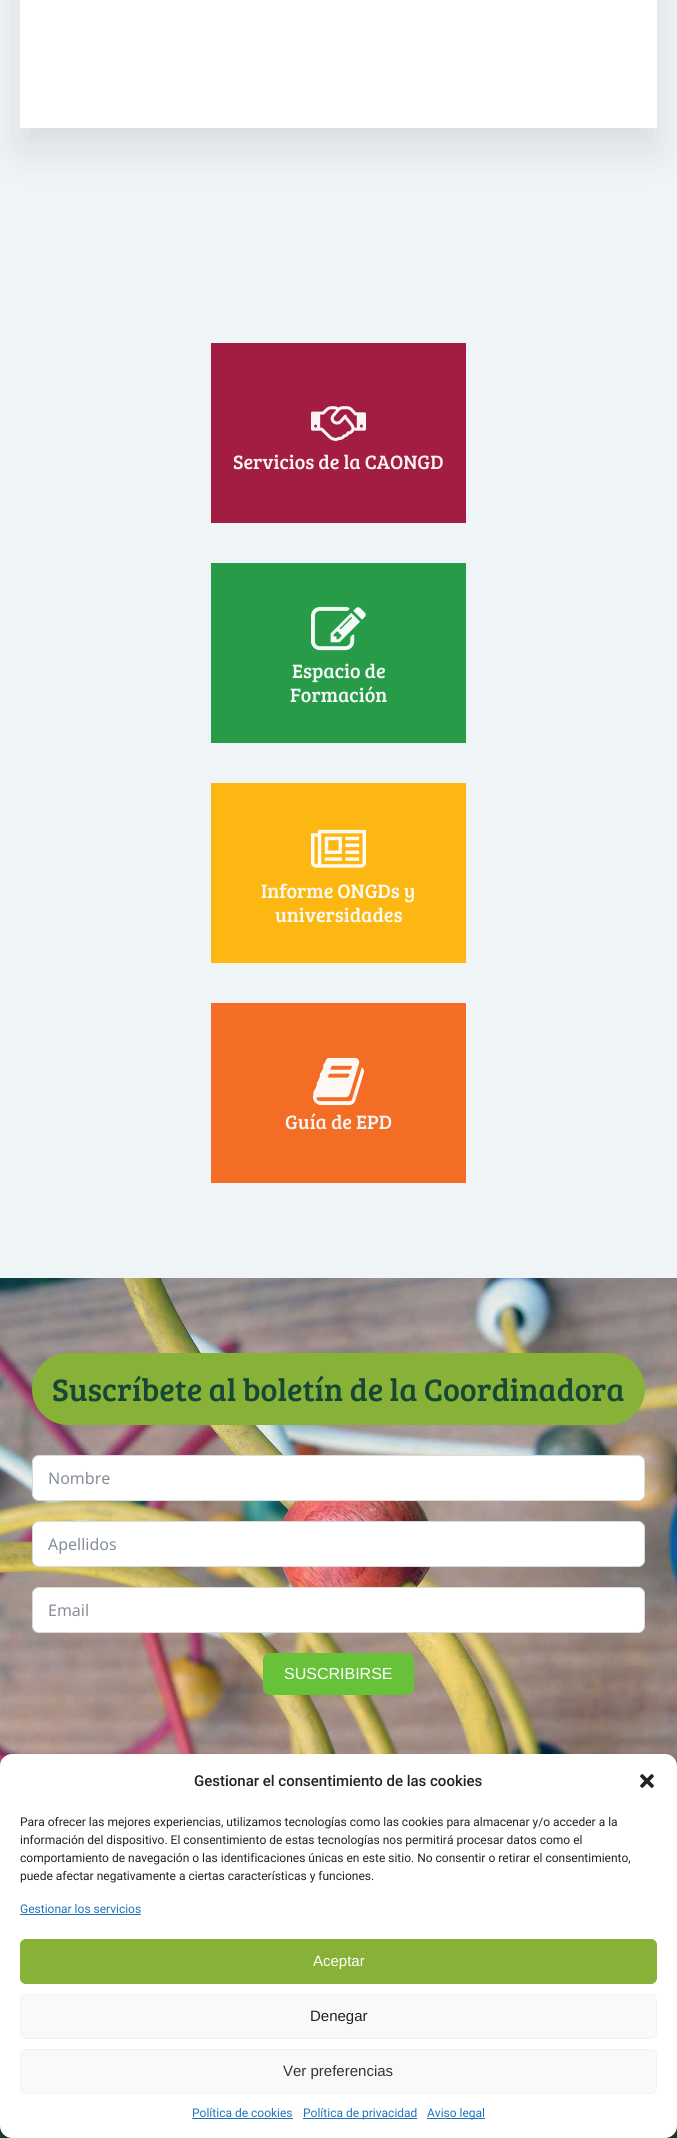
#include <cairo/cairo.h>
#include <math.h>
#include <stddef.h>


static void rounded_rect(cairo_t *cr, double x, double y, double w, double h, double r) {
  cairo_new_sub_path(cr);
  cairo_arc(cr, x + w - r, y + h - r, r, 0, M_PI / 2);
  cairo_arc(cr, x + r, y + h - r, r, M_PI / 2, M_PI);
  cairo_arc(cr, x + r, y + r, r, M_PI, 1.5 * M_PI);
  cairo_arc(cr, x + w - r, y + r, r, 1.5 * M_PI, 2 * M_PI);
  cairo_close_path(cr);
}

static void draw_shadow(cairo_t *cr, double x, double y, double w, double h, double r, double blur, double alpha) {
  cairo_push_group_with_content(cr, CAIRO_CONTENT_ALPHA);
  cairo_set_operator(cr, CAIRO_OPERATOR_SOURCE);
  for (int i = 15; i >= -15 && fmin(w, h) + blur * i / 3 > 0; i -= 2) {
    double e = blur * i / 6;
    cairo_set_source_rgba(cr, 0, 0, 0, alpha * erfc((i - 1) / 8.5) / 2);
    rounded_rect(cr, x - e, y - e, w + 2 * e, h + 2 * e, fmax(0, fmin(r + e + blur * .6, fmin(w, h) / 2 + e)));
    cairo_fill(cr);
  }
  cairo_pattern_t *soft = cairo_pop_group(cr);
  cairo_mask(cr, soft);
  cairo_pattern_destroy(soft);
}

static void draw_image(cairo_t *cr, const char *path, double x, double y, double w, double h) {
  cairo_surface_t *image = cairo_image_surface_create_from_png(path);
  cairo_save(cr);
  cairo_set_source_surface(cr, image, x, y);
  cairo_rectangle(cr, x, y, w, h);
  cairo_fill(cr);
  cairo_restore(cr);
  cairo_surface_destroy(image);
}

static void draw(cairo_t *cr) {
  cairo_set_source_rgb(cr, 239 / 255.0, 244 / 255.0, 247 / 255.0);
  cairo_paint(cr);
  cairo_set_source_rgb(cr, 0, 0, 0);
  draw_shadow(cr, 20, -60, 637, 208, 0, 20, 0.1);
  cairo_set_source_rgb(cr, 1, 1, 1);
  cairo_rectangle(cr, 20, 0, 637, 128);
  cairo_fill(cr);
  cairo_set_source_rgb(cr, 163 / 255.0, 29 / 255.0, 66 / 255.0);
  cairo_rectangle(cr, 211, 343, 255, 180);
  cairo_fill(cr);
  draw_image(cr, "images/1.png", 311, 406, 55, 35);
  cairo_set_source_rgb(cr, 39 / 255.0, 155 / 255.0, 72 / 255.0);
  cairo_rectangle(cr, 211, 563, 255, 180);
  cairo_fill(cr);
  draw_image(cr, "images/2.png", 311, 606, 55, 45);
  cairo_set_source_rgb(cr, 253 / 255.0, 183 / 255.0, 19 / 255.0);
  cairo_rectangle(cr, 211, 783, 255, 180);
  cairo_fill(cr);
  draw_image(cr, "images/3.png", 311, 829, 55, 39);
  cairo_set_source_rgb(cr, 243 / 255.0, 109 / 255.0, 37 / 255.0);
  cairo_rectangle(cr, 211, 1003, 255, 180);
  cairo_fill(cr);
  draw_image(cr, "images/4.png", 312, 1057, 52, 49);
  draw_image(cr, "images/5.png", 0, 1278, 677, 488);
  cairo_set_source_rgb(cr, 136 / 255.0, 177 / 255.0, 55 / 255.0);
  rounded_rect(cr, 32, 1353, 613, 72, 36);
  cairo_fill(cr);
  cairo_set_source_rgb(cr, 1, 1, 1);
  rounded_rect(cr, 32.5, 1455.5, 612, 45, 6.5);
  cairo_fill_preserve(cr);
  cairo_set_source_rgb(cr, 218 / 255.0, 219 / 255.0, 221 / 255.0);
  cairo_set_line_width(cr, 1);
  cairo_stroke(cr);
  cairo_set_source_rgb(cr, 1, 1, 1);
  rounded_rect(cr, 32.5, 1521.5, 612, 45, 6.5);
  cairo_fill_preserve(cr);
  cairo_set_source_rgb(cr, 218 / 255.0, 219 / 255.0, 221 / 255.0);
  cairo_stroke(cr);
  cairo_set_source_rgb(cr, 1, 1, 1);
  rounded_rect(cr, 32.5, 1587.5, 612, 45, 6.5);
  cairo_fill_preserve(cr);
  cairo_set_source_rgb(cr, 218 / 255.0, 219 / 255.0, 221 / 255.0);
  cairo_stroke(cr);
  cairo_set_source_rgb(cr, 103 / 255.0, 194 / 255.0, 58 / 255.0);
  rounded_rect(cr, 263, 1653, 151, 42, 7);
  cairo_fill(cr);
  cairo_set_source_rgb(cr, 23 / 255.0, 71 / 255.0, 53 / 255.0);
  cairo_rectangle(cr, 0, 2126, 677, 12);
  cairo_fill(cr);
  cairo_set_source_rgb(cr, 0, 0, 0);
  draw_shadow(cr, 0, 1760, 677, 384, 12, 3, 0.23);
  draw_shadow(cr, 0, 1764, 677, 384, 12, 10, 0.19);
  cairo_set_source_rgb(cr, 1, 1, 1);
  rounded_rect(cr, 0, 1754, 677, 384, 12);
  cairo_fill(cr);
  draw_image(cr, "images/6.png", 640, 1774, 14, 14);
  cairo_set_source_rgb(cr, 30 / 255.0, 115 / 255.0, 190 / 255.0);
  cairo_rectangle(cr, 20, 1914, 121, 1);
  cairo_fill(cr);
  cairo_set_source_rgb(cr, 136 / 255.0, 177 / 255.0, 55 / 255.0);
  rounded_rect(cr, 20.5, 1939.5, 636, 44, 5.5);
  cairo_fill_preserve(cr);
  cairo_stroke(cr);
  cairo_set_source_rgb(cr, 249 / 255.0, 249 / 255.0, 249 / 255.0);
  rounded_rect(cr, 20.5, 1994.5, 636, 44, 5.5);
  cairo_fill_preserve(cr);
  cairo_set_source_rgb(cr, 242 / 255.0, 242 / 255.0, 242 / 255.0);
  cairo_stroke(cr);
  cairo_set_source_rgb(cr, 249 / 255.0, 249 / 255.0, 249 / 255.0);
  rounded_rect(cr, 20.5, 2049.5, 636, 44, 5.5);
  cairo_fill_preserve(cr);
  cairo_set_source_rgb(cr, 242 / 255.0, 242 / 255.0, 242 / 255.0);
  cairo_stroke(cr);
  cairo_set_source_rgb(cr, 30 / 255.0, 115 / 255.0, 190 / 255.0);
  cairo_rectangle(cr, 192, 2118, 101, 1);
  cairo_fill(cr);
  cairo_rectangle(cr, 303, 2118, 114, 1);
  cairo_fill(cr);
  cairo_rectangle(cr, 427, 2118, 58, 1);
  cairo_fill(cr);
  cairo_select_font_face(cr, "Bree Serif", CAIRO_FONT_SLANT_NORMAL, CAIRO_FONT_WEIGHT_NORMAL);
  cairo_set_font_size(cr, 20);
  cairo_set_source_rgb(cr, 250 / 255.0, 244 / 255.0, 246 / 255.0);
  cairo_move_to(cr, 233, 469);
  cairo_show_text(cr, "Servicios de la CAONGD");
  cairo_set_source_rgb(cr, 244 / 255.0, 250 / 255.0, 246 / 255.0);
  cairo_move_to(cr, 292, 678);
  cairo_show_text(cr, "Espacio de");
  cairo_move_to(cr, 290, 702);
  cairo_show_text(cr, "Formación");
  cairo_set_source_rgb(cr, 1, 251 / 255.0, 243 / 255.0);
  cairo_move_to(cr, 261, 898);
  cairo_show_text(cr, "Informe ONGDs y");
  cairo_move_to(cr, 275, 922);
  cairo_show_text(cr, "universidades");
  cairo_set_source_rgb(cr, 250 / 255.0, 244 / 255.0, 246 / 255.0);
  cairo_move_to(cr, 285, 1129);
  cairo_show_text(cr, "Guía de EPD");
  cairo_set_font_size(cr, 32);
  cairo_set_source_rgb(cr, 23 / 255.0, 71 / 255.0, 53 / 255.0);
  cairo_move_to(cr, 52, 1401);
  cairo_show_text(cr, "Suscríbete al boletín de la Coordinadora");
  cairo_select_font_face(cr, "Noto Sans", CAIRO_FONT_SLANT_NORMAL, CAIRO_FONT_WEIGHT_NORMAL);
  cairo_set_font_size(cr, 16);
  cairo_set_source_rgb(cr, 134 / 255.0, 142 / 255.0, 150 / 255.0);
  cairo_move_to(cr, 48, 1484);
  cairo_show_text(cr, "Nombre");
  cairo_move_to(cr, 48, 1550);
  cairo_show_text(cr, "Apellidos");
  cairo_move_to(cr, 48, 1616);
  cairo_show_text(cr, "Email");
  cairo_select_font_face(cr, "Liberation Sans", CAIRO_FONT_SLANT_NORMAL, CAIRO_FONT_WEIGHT_NORMAL);
  cairo_set_source_rgb(cr, 1, 1, 1);
  cairo_move_to(cr, 284, 1679);
  cairo_show_text(cr, "SUSCRIBIRSE");
  cairo_select_font_face(cr, "Roboto Medium", CAIRO_FONT_SLANT_NORMAL, CAIRO_FONT_WEIGHT_NORMAL);
  cairo_set_font_size(cr, 15);
  cairo_set_source_rgb(cr, 34 / 255.0, 34 / 255.0, 34 / 255.0);
  cairo_move_to(cr, 194, 1786);
  cairo_show_text(cr, "Gestionar el consentimiento de las cookies");
  cairo_select_font_face(cr, "Roboto", CAIRO_FONT_SLANT_NORMAL, CAIRO_FONT_WEIGHT_NORMAL);
  cairo_set_font_size(cr, 12);
  cairo_move_to(cr, 20, 1826);
  cairo_show_text(cr, "Para ofrecer las mejores experiencias, utilizamos tecnologías como las cookies para almacenar y/o acceder a la");
  cairo_move_to(cr, 20, 1844);
  cairo_show_text(cr, "información del dispositivo. El consentimiento de estas tecnologías nos permitirá procesar datos como el");
  cairo_move_to(cr, 20, 1862);
  cairo_show_text(cr, "comportamiento de navegación o las identificaciones únicas en este sitio. No consentir o retirar el consentimiento,");
  cairo_move_to(cr, 20, 1880);
  cairo_show_text(cr, "puede afectar negativamente a ciertas características y funciones.");
  cairo_set_source_rgb(cr, 30 / 255.0, 115 / 255.0, 190 / 255.0);
  cairo_move_to(cr, 20, 1913);
  cairo_show_text(cr, "Gestionar los servicios");
  cairo_select_font_face(cr, "Liberation Sans", CAIRO_FONT_SLANT_NORMAL, CAIRO_FONT_WEIGHT_NORMAL);
  cairo_set_font_size(cr, 15);
  cairo_set_source_rgb(cr, 1, 1, 1);
  cairo_move_to(cr, 313, 1966);
  cairo_show_text(cr, "Aceptar");
  cairo_set_source_rgb(cr, 34 / 255.0, 34 / 255.0, 34 / 255.0);
  cairo_move_to(cr, 310, 2021);
  cairo_show_text(cr, "Denegar");
  cairo_set_source_rgb(cr, 51 / 255.0, 51 / 255.0, 51 / 255.0);
  cairo_move_to(cr, 283, 2076);
  cairo_show_text(cr, "Ver preferencias");
  cairo_select_font_face(cr, "Roboto", CAIRO_FONT_SLANT_NORMAL, CAIRO_FONT_WEIGHT_NORMAL);
  cairo_set_font_size(cr, 12);
  cairo_set_source_rgb(cr, 30 / 255.0, 115 / 255.0, 190 / 255.0);
  cairo_move_to(cr, 192, 2117);
  cairo_show_text(cr, "Política de cookies");
  cairo_move_to(cr, 303, 2117);
  cairo_show_text(cr, "Política de privacidad");
  cairo_move_to(cr, 427, 2117);
  cairo_show_text(cr, "Aviso legal");
}

int main(void) {
  cairo_surface_t *surface = cairo_image_surface_create(CAIRO_FORMAT_RGB24, 677, 2138);
  cairo_t *cr = cairo_create(surface);
  cairo_font_options_t *options = cairo_font_options_create();
  cairo_font_options_set_hint_metrics(options, CAIRO_HINT_METRICS_OFF);
  cairo_font_options_set_hint_style(options, CAIRO_HINT_STYLE_NONE);
  cairo_set_font_options(cr, options);
  cairo_set_miter_limit(cr, 4);
  draw(cr);
  cairo_surface_write_to_png(surface, "out.png");
  cairo_font_options_destroy(options);
  cairo_destroy(cr);
  cairo_surface_destroy(surface);
  return 0;
}
